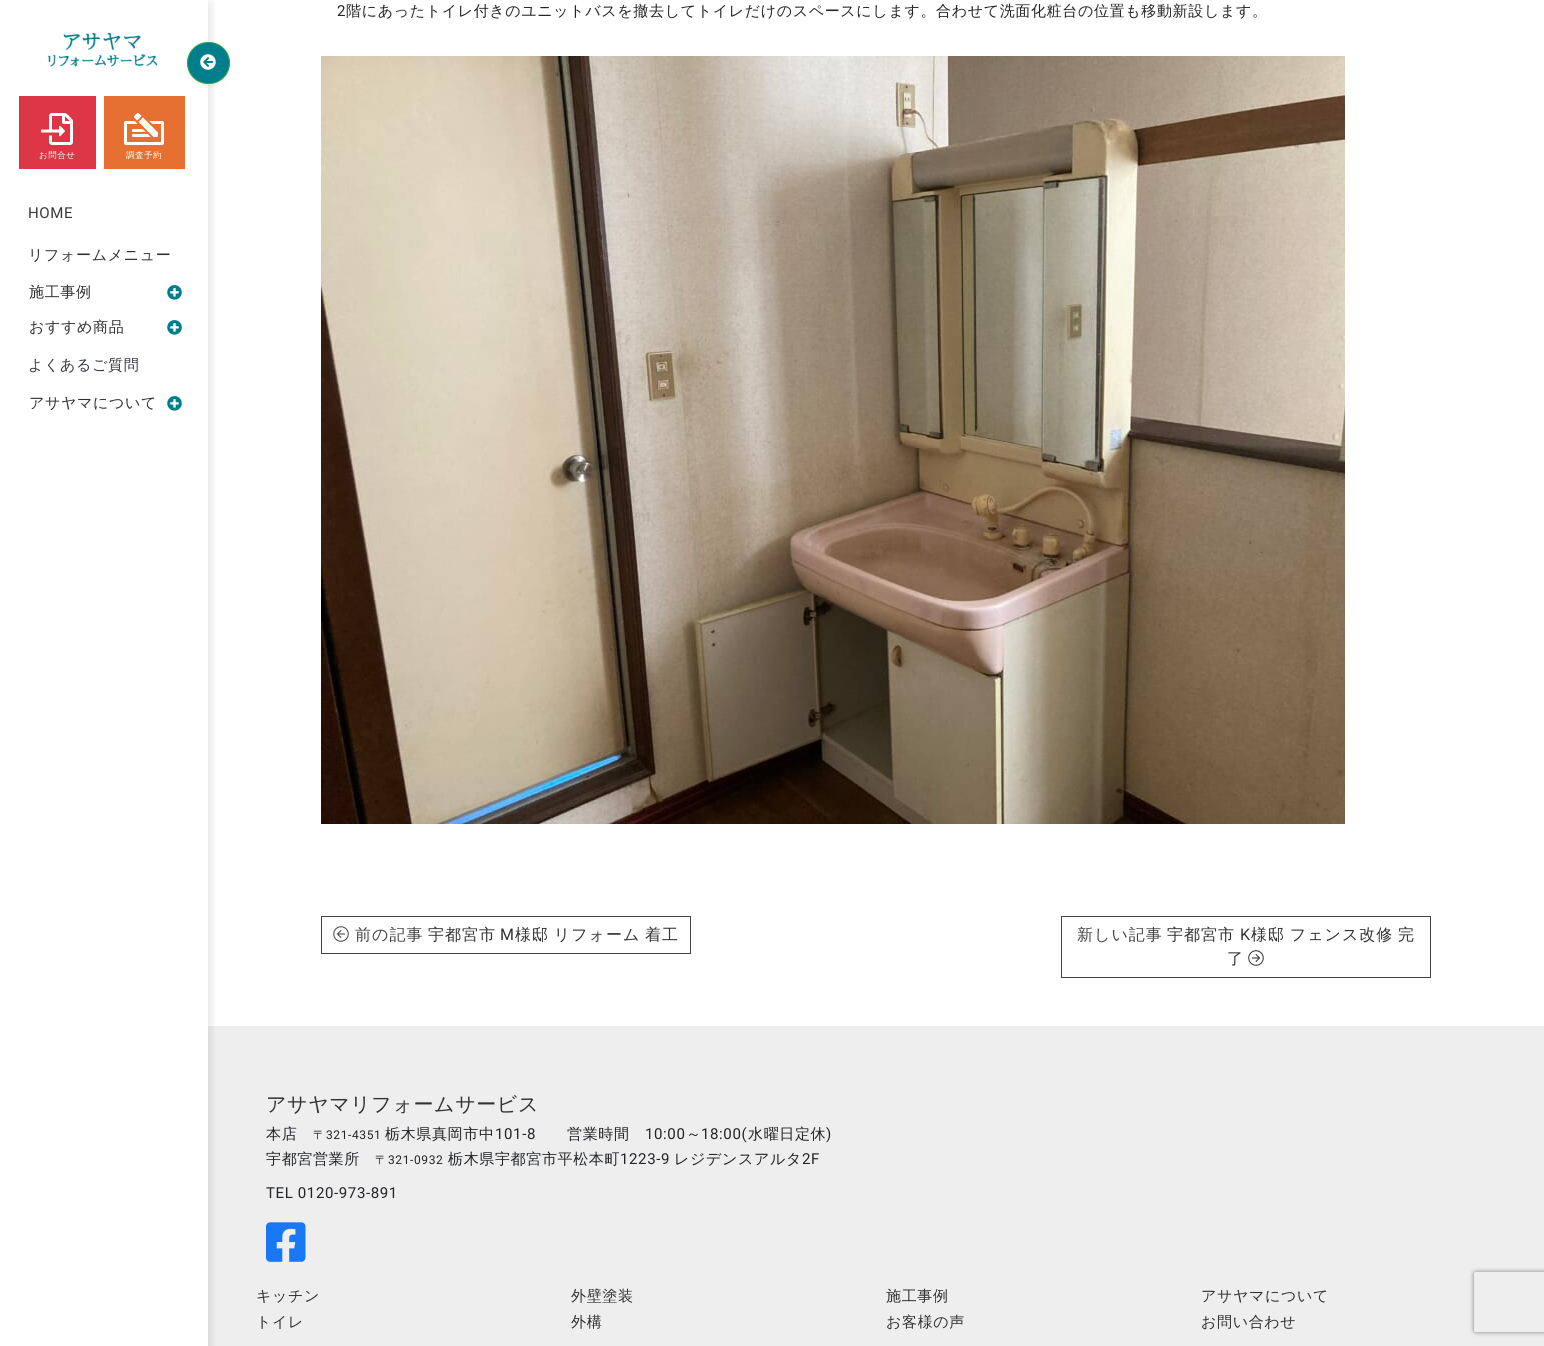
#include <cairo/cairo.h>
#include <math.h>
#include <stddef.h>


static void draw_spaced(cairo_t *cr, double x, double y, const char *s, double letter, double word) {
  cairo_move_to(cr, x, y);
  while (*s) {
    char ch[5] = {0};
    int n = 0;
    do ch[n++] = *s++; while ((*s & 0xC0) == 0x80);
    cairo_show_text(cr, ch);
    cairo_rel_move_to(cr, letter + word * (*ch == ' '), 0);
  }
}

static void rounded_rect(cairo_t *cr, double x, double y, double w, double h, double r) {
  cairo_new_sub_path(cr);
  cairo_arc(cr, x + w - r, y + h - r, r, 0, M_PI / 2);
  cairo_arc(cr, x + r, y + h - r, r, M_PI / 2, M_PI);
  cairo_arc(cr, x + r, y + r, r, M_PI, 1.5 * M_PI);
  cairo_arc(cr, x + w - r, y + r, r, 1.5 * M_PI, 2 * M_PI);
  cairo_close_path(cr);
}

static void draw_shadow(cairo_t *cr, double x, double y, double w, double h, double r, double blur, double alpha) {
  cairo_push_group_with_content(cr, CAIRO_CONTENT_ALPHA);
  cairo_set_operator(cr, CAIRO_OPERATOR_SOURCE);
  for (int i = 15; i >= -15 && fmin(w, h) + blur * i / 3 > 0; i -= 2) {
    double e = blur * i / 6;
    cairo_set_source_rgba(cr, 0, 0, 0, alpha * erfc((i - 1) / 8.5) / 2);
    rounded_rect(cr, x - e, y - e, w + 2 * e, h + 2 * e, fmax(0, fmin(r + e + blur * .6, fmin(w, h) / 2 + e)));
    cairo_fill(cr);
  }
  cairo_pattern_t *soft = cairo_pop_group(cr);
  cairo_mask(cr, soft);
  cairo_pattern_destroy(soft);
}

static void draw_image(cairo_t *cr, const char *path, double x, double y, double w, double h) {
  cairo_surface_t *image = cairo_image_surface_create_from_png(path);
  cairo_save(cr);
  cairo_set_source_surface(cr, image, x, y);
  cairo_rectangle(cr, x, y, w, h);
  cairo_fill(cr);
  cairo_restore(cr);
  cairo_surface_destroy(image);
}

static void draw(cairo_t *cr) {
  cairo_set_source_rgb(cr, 1, 1, 1);
  cairo_paint(cr);
  cairo_set_source_rgb(cr, 238 / 255.0, 238 / 255.0, 238 / 255.0);
  cairo_rectangle(cr, 208, 1026, 1336, 320);
  cairo_fill(cr);
  cairo_save(cr);
  cairo_rectangle(cr, 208, 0, 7, 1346);
  cairo_clip(cr);
  cairo_set_source_rgb(cr, 0, 0, 0);
  draw_shadow(cr, 3, 3, 208, 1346, 0, 5, 0.1);
  cairo_restore(cr);
  draw_image(cr, "images/1.png", 47, 33, 111, 34);
  cairo_set_source_rgb(cr, 0, 0, 0);
  draw_shadow(cr, 187, 44, 43, 42, 21, 2, 0.07);
  cairo_set_source_rgb(cr, 0, 126 / 255.0, 139 / 255.0);
  rounded_rect(cr, 187.5, 42.5, 42, 41, 20.5);
  cairo_fill_preserve(cr);
  cairo_set_source_rgb(cr, 40 / 255.0, 167 / 255.0, 69 / 255.0);
  cairo_set_line_width(cr, 1);
  cairo_stroke(cr);
  draw_image(cr, "images/2.png", 200, 54, 16, 16);
  cairo_set_source_rgb(cr, 220 / 255.0, 53 / 255.0, 69 / 255.0);
  cairo_rectangle(cr, 19, 96, 77, 73);
  cairo_fill(cr);
  draw_image(cr, "images/3.png", 41, 113, 32, 32);
  cairo_set_source_rgb(cr, 230 / 255.0, 112 / 255.0, 49 / 255.0);
  cairo_rectangle(cr, 104, 96, 81, 73);
  cairo_fill(cr);
  draw_image(cr, "images/4.png", 124, 113, 40, 32);
  draw_image(cr, "images/5.png", 167, 285, 15, 15);
  draw_image(cr, "images/5.png", 167, 320, 15, 15);
  draw_image(cr, "images/5.png", 167, 396, 15, 15);
  draw_image(cr, "images/6.png", 321, 56, 1024, 768);
  cairo_rectangle(cr, 321.5, 916.5, 369, 37);
  cairo_set_source_rgb(cr, 68 / 255.0, 68 / 255.0, 68 / 255.0);
  cairo_stroke(cr);
  draw_image(cr, "images/7.png", 333, 926, 16, 16);
  cairo_rectangle(cr, 1061.5, 916.5, 369, 61);
  cairo_stroke(cr);
  draw_image(cr, "images/8.png", 1248, 950, 16, 16);
  draw_image(cr, "images/9.png", 266, 1222, 40, 40);
  cairo_save(cr);
  cairo_set_fill_rule(cr, CAIRO_FILL_RULE_EVEN_ODD);
  cairo_new_path(cr);
  cairo_move_to(cr, 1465, 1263);
  cairo_line_to(cr, 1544, 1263);
  cairo_line_to(cr, 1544, 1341);
  cairo_line_to(cr, 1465, 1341);
  cairo_close_path(cr);
  cairo_move_to(cr, 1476, 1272);
  cairo_line_to(cr, 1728, 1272);
  cairo_curve_to(cr, 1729, 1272, 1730, 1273, 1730, 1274);
  cairo_line_to(cr, 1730, 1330);
  cairo_curve_to(cr, 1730, 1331, 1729, 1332, 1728, 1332);
  cairo_line_to(cr, 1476, 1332);
  cairo_curve_to(cr, 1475, 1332, 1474, 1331, 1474, 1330);
  cairo_line_to(cr, 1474, 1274);
  cairo_curve_to(cr, 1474, 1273, 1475, 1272, 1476, 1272);
  cairo_close_path(cr);
  cairo_clip(cr);
  cairo_set_source_rgb(cr, 128 / 255.0, 128 / 255.0, 128 / 255.0);
  draw_shadow(cr, 1474, 1272, 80, 60, 2, 2.5, 1);
  cairo_restore(cr);
  cairo_select_font_face(cr, "WenQuanYi Zen Hei Medium", CAIRO_FONT_SLANT_NORMAL, CAIRO_FONT_WEIGHT_NORMAL);
  cairo_set_font_size(cr, 8.5);
  cairo_set_source_rgb(cr, 1, 1, 1);
  draw_spaced(cr, 39, 158, "お問合せ", 0.5, 0);
  draw_spaced(cr, 126, 158, "調査予約", 0.5, 0);
  cairo_select_font_face(cr, "Roboto", CAIRO_FONT_SLANT_NORMAL, CAIRO_FONT_WEIGHT_NORMAL);
  cairo_set_font_size(cr, 15.05);
  cairo_set_source_rgb(cr, 52 / 255.0, 58 / 255.0, 64 / 255.0);
  draw_spaced(cr, 28, 218, "HOME", 0.6, 0);
  cairo_select_font_face(cr, "WenQuanYi Zen Hei Medium", CAIRO_FONT_SLANT_NORMAL, CAIRO_FONT_WEIGHT_NORMAL);
  cairo_set_source_rgb(cr, 49 / 255.0, 49 / 255.0, 49 / 255.0);
  draw_spaced(cr, 28, 260, "リフォームメニュー", 0.6, 0);
  draw_spaced(cr, 29, 297, "施工事例", 0.6, 0);
  draw_spaced(cr, 29, 332, "おすすめ商品", 0.6, 0);
  cairo_set_source_rgb(cr, 52 / 255.0, 58 / 255.0, 64 / 255.0);
  draw_spaced(cr, 28, 370, "よくあるご質問", 0.6, 0);
  cairo_set_source_rgb(cr, 49 / 255.0, 49 / 255.0, 49 / 255.0);
  draw_spaced(cr, 29, 408, "アサヤマについて", 0.6, 0);
  cairo_select_font_face(cr, "Roboto", CAIRO_FONT_SLANT_NORMAL, CAIRO_FONT_WEIGHT_NORMAL);
  cairo_set_source_rgb(cr, 33 / 255.0, 37 / 255.0, 41 / 255.0);
  draw_spaced(cr, 337, 16, "2", 0.6, 0);
  cairo_select_font_face(cr, "WenQuanYi Zen Hei Medium", CAIRO_FONT_SLANT_NORMAL, CAIRO_FONT_WEIGHT_NORMAL);
  draw_spaced(cr, 346, 16, "階にあったトイレ付きのユニットバスを撤去してトイレだけのスペースにします。合わせて洗面化粧台の位置も移動新設します。", 0.6, 0);
  cairo_set_font_size(cr, 16);
  cairo_set_source_rgb(cr, 68 / 255.0, 68 / 255.0, 68 / 255.0);
  draw_spaced(cr, 355, 940, "前の記事", 1, 0);
  cairo_set_source_rgb(cr, 49 / 255.0, 49 / 255.0, 49 / 255.0);
  draw_spaced(cr, 428, 940, "宇都宮市", 1, 0);
  cairo_select_font_face(cr, "Roboto", CAIRO_FONT_SLANT_NORMAL, CAIRO_FONT_WEIGHT_NORMAL);
  draw_spaced(cr, 500, 940, "M", 1, 0);
  cairo_select_font_face(cr, "WenQuanYi Zen Hei Medium", CAIRO_FONT_SLANT_NORMAL, CAIRO_FONT_WEIGHT_NORMAL);
  draw_spaced(cr, 515, 940, "様邸 リフォーム 着工", 1, -1);
  cairo_set_source_rgb(cr, 68 / 255.0, 68 / 255.0, 68 / 255.0);
  draw_spaced(cr, 1077, 940, "新しい記事", 1, 0);
  cairo_set_source_rgb(cr, 49 / 255.0, 49 / 255.0, 49 / 255.0);
  draw_spaced(cr, 1167, 940, "宇都宮市", 1, 0);
  cairo_select_font_face(cr, "Roboto", CAIRO_FONT_SLANT_NORMAL, CAIRO_FONT_WEIGHT_NORMAL);
  draw_spaced(cr, 1240, 940, "K", 1, 0);
  cairo_select_font_face(cr, "WenQuanYi Zen Hei Medium", CAIRO_FONT_SLANT_NORMAL, CAIRO_FONT_WEIGHT_NORMAL);
  draw_spaced(cr, 1251, 940, "様邸 フェンス改修 完", 1, -1);
  draw_spaced(cr, 1227, 964, "了", 1, 0);
  cairo_set_font_size(cr, 20);
  draw_spaced(cr, 266, 1111, "アサヤマリフォームサービス", 0.6, 0);
  cairo_set_font_size(cr, 15.05);
  cairo_set_source_rgb(cr, 33 / 255.0, 37 / 255.0, 41 / 255.0);
  draw_spaced(cr, 266, 1139, "本店", 0.6, 0);
  cairo_set_font_size(cr, 12);
  draw_spaced(cr, 313, 1139, "〒", 0.6, 0);
  cairo_select_font_face(cr, "Roboto", CAIRO_FONT_SLANT_NORMAL, CAIRO_FONT_WEIGHT_NORMAL);
  draw_spaced(cr, 326, 1139, "321-4351", 0.6, 0);
  cairo_select_font_face(cr, "WenQuanYi Zen Hei Medium", CAIRO_FONT_SLANT_NORMAL, CAIRO_FONT_WEIGHT_NORMAL);
  cairo_set_font_size(cr, 15.05);
  draw_spaced(cr, 385, 1139, "栃木県真岡市中", 0.6, 0);
  cairo_select_font_face(cr, "Roboto", CAIRO_FONT_SLANT_NORMAL, CAIRO_FONT_WEIGHT_NORMAL);
  draw_spaced(cr, 495, 1139, "101-8", 0.6, 0);
  cairo_select_font_face(cr, "WenQuanYi Zen Hei Medium", CAIRO_FONT_SLANT_NORMAL, CAIRO_FONT_WEIGHT_NORMAL);
  draw_spaced(cr, 567, 1139, "営業時間", 0.6, 0);
  cairo_select_font_face(cr, "Roboto", CAIRO_FONT_SLANT_NORMAL, CAIRO_FONT_WEIGHT_NORMAL);
  draw_spaced(cr, 645, 1139, "10:00", 0.6, 0);
  cairo_select_font_face(cr, "WenQuanYi Zen Hei Medium", CAIRO_FONT_SLANT_NORMAL, CAIRO_FONT_WEIGHT_NORMAL);
  draw_spaced(cr, 686, 1139, "～", 0.6, 0);
  cairo_select_font_face(cr, "Roboto", CAIRO_FONT_SLANT_NORMAL, CAIRO_FONT_WEIGHT_NORMAL);
  draw_spaced(cr, 701, 1139, "18:00(", 0.6, 0);
  cairo_select_font_face(cr, "WenQuanYi Zen Hei Medium", CAIRO_FONT_SLANT_NORMAL, CAIRO_FONT_WEIGHT_NORMAL);
  draw_spaced(cr, 748, 1139, "水曜日定休", 0.6, 0);
  cairo_select_font_face(cr, "Roboto", CAIRO_FONT_SLANT_NORMAL, CAIRO_FONT_WEIGHT_NORMAL);
  draw_spaced(cr, 826, 1139, ")", 0.6, 0);
  cairo_select_font_face(cr, "WenQuanYi Zen Hei Medium", CAIRO_FONT_SLANT_NORMAL, CAIRO_FONT_WEIGHT_NORMAL);
  draw_spaced(cr, 266, 1164, "宇都宮営業所", 0.6, 0);
  cairo_set_font_size(cr, 12);
  draw_spaced(cr, 375, 1164, "〒", 0.6, 0);
  cairo_select_font_face(cr, "Roboto", CAIRO_FONT_SLANT_NORMAL, CAIRO_FONT_WEIGHT_NORMAL);
  draw_spaced(cr, 388, 1164, "321-0932", 0.6, 0);
  cairo_select_font_face(cr, "WenQuanYi Zen Hei Medium", CAIRO_FONT_SLANT_NORMAL, CAIRO_FONT_WEIGHT_NORMAL);
  cairo_set_font_size(cr, 15.05);
  draw_spaced(cr, 448, 1164, "栃木県宇都宮市平松本町", 0.6, 0);
  cairo_select_font_face(cr, "Roboto", CAIRO_FONT_SLANT_NORMAL, CAIRO_FONT_WEIGHT_NORMAL);
  draw_spaced(cr, 620, 1164, "1223-9", 0.6, 0);
  cairo_select_font_face(cr, "WenQuanYi Zen Hei Medium", CAIRO_FONT_SLANT_NORMAL, CAIRO_FONT_WEIGHT_NORMAL);
  draw_spaced(cr, 674, 1164, "レジデンスアルタ", 0.6, 0);
  cairo_select_font_face(cr, "Roboto", CAIRO_FONT_SLANT_NORMAL, CAIRO_FONT_WEIGHT_NORMAL);
  draw_spaced(cr, 802, 1164, "2F", 0.6, 0);
  draw_spaced(cr, 266, 1198, "TEL 0120-973-891", 0.6, 0);
  cairo_select_font_face(cr, "WenQuanYi Zen Hei Medium", CAIRO_FONT_SLANT_NORMAL, CAIRO_FONT_WEIGHT_NORMAL);
  cairo_set_source_rgb(cr, 49 / 255.0, 49 / 255.0, 49 / 255.0);
  draw_spaced(cr, 256, 1301, "キッチン", 0.6, 0);
  draw_spaced(cr, 256, 1327, "トイレ", 0.6, 0);
  draw_spaced(cr, 571, 1301, "外壁塗装", 0.6, 0);
  draw_spaced(cr, 571, 1327, "外構", 0.6, 0);
  draw_spaced(cr, 886, 1301, "施工事例", 0.6, 0);
  draw_spaced(cr, 886, 1327, "お客様の声", 0.6, 0);
  draw_spaced(cr, 1201, 1301, "アサヤマについて", 0.6, 0);
  draw_spaced(cr, 1201, 1327, "お問い合わせ", 0.6, 0);
}

int main(void) {
  cairo_surface_t *surface = cairo_image_surface_create(CAIRO_FORMAT_RGB24, 1544, 1346);
  cairo_t *cr = cairo_create(surface);
  cairo_font_options_t *options = cairo_font_options_create();
  cairo_font_options_set_hint_metrics(options, CAIRO_HINT_METRICS_OFF);
  cairo_font_options_set_hint_style(options, CAIRO_HINT_STYLE_NONE);
  cairo_set_font_options(cr, options);
  cairo_set_miter_limit(cr, 4);
  draw(cr);
  cairo_surface_write_to_png(surface, "out.png");
  cairo_font_options_destroy(options);
  cairo_destroy(cr);
  cairo_surface_destroy(surface);
  return 0;
}
